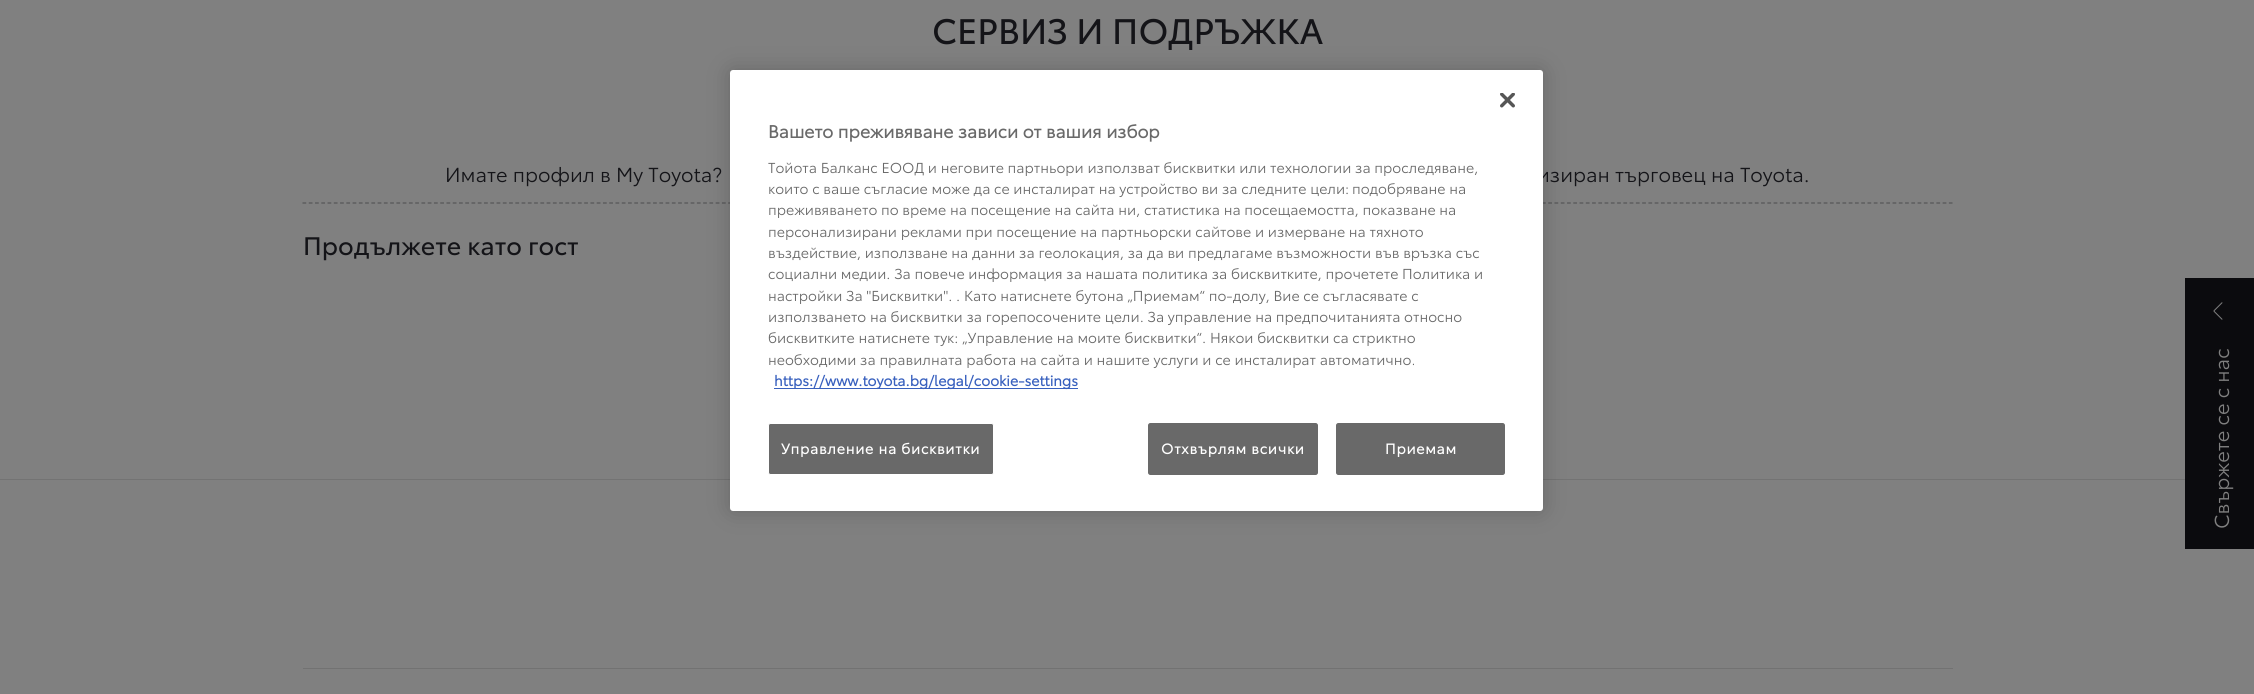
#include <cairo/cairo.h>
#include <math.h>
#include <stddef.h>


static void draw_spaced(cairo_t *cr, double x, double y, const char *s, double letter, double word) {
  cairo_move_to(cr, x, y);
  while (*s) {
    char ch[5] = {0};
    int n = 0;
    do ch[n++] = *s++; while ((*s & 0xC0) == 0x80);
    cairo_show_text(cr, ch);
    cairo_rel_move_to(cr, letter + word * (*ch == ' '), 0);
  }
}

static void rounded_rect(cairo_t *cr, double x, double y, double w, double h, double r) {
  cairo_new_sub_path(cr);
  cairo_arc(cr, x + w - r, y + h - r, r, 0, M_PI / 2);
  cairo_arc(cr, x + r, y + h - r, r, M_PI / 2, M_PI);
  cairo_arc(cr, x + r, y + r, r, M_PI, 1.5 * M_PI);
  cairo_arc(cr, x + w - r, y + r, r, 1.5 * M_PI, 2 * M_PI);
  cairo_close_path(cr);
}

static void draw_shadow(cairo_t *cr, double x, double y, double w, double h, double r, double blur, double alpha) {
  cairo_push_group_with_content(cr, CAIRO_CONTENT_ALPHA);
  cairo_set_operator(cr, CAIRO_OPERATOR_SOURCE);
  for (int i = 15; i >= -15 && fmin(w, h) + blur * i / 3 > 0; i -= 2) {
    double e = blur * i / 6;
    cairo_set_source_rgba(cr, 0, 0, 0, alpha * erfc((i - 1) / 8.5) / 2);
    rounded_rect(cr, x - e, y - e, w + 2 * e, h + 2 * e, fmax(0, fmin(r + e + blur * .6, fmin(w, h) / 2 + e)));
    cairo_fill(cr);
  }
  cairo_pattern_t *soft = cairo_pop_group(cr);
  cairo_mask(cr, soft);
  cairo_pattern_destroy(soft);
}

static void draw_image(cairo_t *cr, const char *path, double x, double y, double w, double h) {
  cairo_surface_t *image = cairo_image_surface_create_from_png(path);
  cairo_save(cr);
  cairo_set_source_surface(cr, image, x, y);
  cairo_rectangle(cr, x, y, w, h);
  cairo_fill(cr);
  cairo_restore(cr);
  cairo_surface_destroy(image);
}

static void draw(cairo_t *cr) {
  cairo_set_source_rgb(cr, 128 / 255.0, 128 / 255.0, 128 / 255.0);
  cairo_paint(cr);
  cairo_new_path(cr);
  cairo_move_to(cr, 302.5, 203);
  cairo_line_to(cr, 1952.5, 203);
  cairo_set_source_rgb(cr, 84 / 255.0, 85 / 255.0, 86 / 255.0);
  cairo_set_line_width(cr, 1.2);
  cairo_set_dash(cr, (double[]){3.75, 2.51}, 2, 0);
  cairo_stroke(cr);
  cairo_set_source_rgb(cr, 115 / 255.0, 115 / 255.0, 115 / 255.0);
  cairo_rectangle(cr, 0, 479, 2185, 1);
  cairo_fill(cr);
  cairo_set_source_rgb(cr, 114 / 255.0, 114 / 255.0, 114 / 255.0);
  cairo_rectangle(cr, 303, 668, 1650, 1);
  cairo_fill(cr);
  cairo_set_source_rgb(cr, 0, 0, 0);
  draw_shadow(cr, 730, 70, 813, 441, 3, 11, 0.2);
  cairo_set_source_rgb(cr, 11 / 255.0, 11 / 255.0, 14 / 255.0);
  cairo_rectangle(cr, 2185, 278, 69, 271);
  cairo_fill(cr);
  draw_image(cr, "images/2.png", 2213, 302, 10, 18);
  cairo_select_font_face(cr, "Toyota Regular", CAIRO_FONT_SLANT_NORMAL, CAIRO_FONT_WEIGHT_NORMAL);
  cairo_set_font_size(cr, 35);
  cairo_set_source_rgb(cr, 20 / 255.0, 20 / 255.0, 24 / 255.0);
  cairo_move_to(cr, 932, 44);
  cairo_show_text(cr, "СЕРВИЗ И ПОДРЪЖКА");
  cairo_select_font_face(cr, "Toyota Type", CAIRO_FONT_SLANT_NORMAL, CAIRO_FONT_WEIGHT_NORMAL);
  cairo_set_font_size(cr, 20);
  cairo_move_to(cr, 445, 182);
  cairo_show_text(cr, "Имате профил в My Toyota?");
  cairo_move_to(cr, 1537, 182);
  cairo_show_text(cr, "изиран търговец на Toyota.");
  cairo_select_font_face(cr, "Toyota Regular", CAIRO_FONT_SLANT_NORMAL, CAIRO_FONT_WEIGHT_NORMAL);
  cairo_set_font_size(cr, 25);
  cairo_move_to(cr, 303, 255);
  cairo_show_text(cr, "Продължете като гост");
  cairo_set_source_rgb(cr, 1, 1, 1);
  rounded_rect(cr, 730, 70, 813, 441, 3);
  cairo_fill(cr);
  draw_image(cr, "images/1.png", 1500, 93, 15, 15);
  cairo_select_font_face(cr, "Toyota Type", CAIRO_FONT_SLANT_NORMAL, CAIRO_FONT_WEIGHT_BOLD);
  cairo_set_font_size(cr, 17.5);
  cairo_set_source_rgb(cr, 105 / 255.0, 105 / 255.0, 105 / 255.0);
  cairo_move_to(cr, 768, 138);
  cairo_show_text(cr, "Вашето преживяване зависи от вашия избор");
  cairo_select_font_face(cr, "Toyota Type", CAIRO_FONT_SLANT_NORMAL, CAIRO_FONT_WEIGHT_NORMAL);
  cairo_set_font_size(cr, 14.23);
  cairo_move_to(cr, 768, 173);
  cairo_show_text(cr, "Тойота Балканс ЕООД и неговите партньори използват бисквитки или технологии за проследяване,");
  cairo_move_to(cr, 768, 194);
  cairo_show_text(cr, "които с ваше съгласие може да се инсталират на устройство ви за следните цели:");
  cairo_move_to(cr, 1352, 194);
  cairo_show_text(cr, "подобряване на");
  cairo_move_to(cr, 768, 215);
  cairo_show_text(cr, "преживяването по време на посещение на сайта ни, статистика на посещаемостта, показване на");
  cairo_move_to(cr, 768, 237);
  cairo_show_text(cr, "персонализирани реклами при посещение на партньорски сайтове и измерване на тяхното");
  cairo_move_to(cr, 768, 258);
  cairo_show_text(cr, "въздействие, използване на данни за геолокация, за да ви предлагаме възможности във връзка със");
  cairo_move_to(cr, 768, 279);
  cairo_show_text(cr, "социални медии. За повече информация за нашата политика за бисквитките, прочетете Политика и");
  cairo_move_to(cr, 768, 301);
  cairo_show_text(cr, "настройки За \"Бисквитки\". . Като натиснете бутона „Приемам“ по-долу, Вие се съгласявате с");
  cairo_move_to(cr, 768, 322);
  cairo_show_text(cr, "използването на бисквитки за горепосочените цели. За управление на предпочитанията относно");
  cairo_move_to(cr, 768, 343);
  cairo_show_text(cr, "бисквитките натиснете тук: „Управление на моите бисквитки“. Някои бисквитки са стриктно");
  cairo_move_to(cr, 768, 365);
  cairo_show_text(cr, "необходими за правилната работа на сайта и нашите услуги и се инсталират автоматично.");
  cairo_set_source_rgb(cr, 56 / 255.0, 96 / 255.0, 190 / 255.0);
  cairo_rectangle(cr, 774, 388, 304, 1);
  cairo_fill(cr);
  cairo_select_font_face(cr, "Toyota Type", CAIRO_FONT_SLANT_NORMAL, CAIRO_FONT_WEIGHT_BOLD);
  cairo_move_to(cr, 774, 386);
  cairo_show_text(cr, "https://www.toyota.bg/legal/cookie-settings");
  cairo_set_source_rgb(cr, 105 / 255.0, 105 / 255.0, 105 / 255.0);
  rounded_rect(cr, 768.5, 423.5, 225, 51, 2);
  cairo_fill_preserve(cr);
  cairo_set_source_rgb(cr, 1, 1, 1);
  cairo_set_line_width(cr, 1);
  cairo_set_dash(cr, NULL, 0, 0);
  cairo_stroke(cr);
  draw_spaced(cr, 781, 454, "Управление на бисквитки", 0.75, 0);
  cairo_set_source_rgb(cr, 105 / 255.0, 105 / 255.0, 105 / 255.0);
  rounded_rect(cr, 1148.5, 423.5, 169, 51, 2);
  cairo_fill_preserve(cr);
  cairo_stroke(cr);
  cairo_set_source_rgb(cr, 1, 1, 1);
  draw_spaced(cr, 1161, 454, "Отхвърлям всички", 0.75, 0);
  cairo_set_source_rgb(cr, 105 / 255.0, 105 / 255.0, 105 / 255.0);
  rounded_rect(cr, 1336.5, 423.5, 168, 51, 2);
  cairo_fill_preserve(cr);
  cairo_stroke(cr);
  cairo_set_source_rgb(cr, 1, 1, 1);
  draw_spaced(cr, 1385, 454, "Приемам", 0.75, 0);
  cairo_select_font_face(cr, "Toyota Type", CAIRO_FONT_SLANT_NORMAL, CAIRO_FONT_WEIGHT_NORMAL);
  cairo_set_font_size(cr, 20);
  cairo_set_source_rgb(cr, 128 / 255.0, 128 / 255.0, 128 / 255.0);
  cairo_save(cr);
  cairo_translate(cr, 2229, 529);
  cairo_rotate(cr, -90 * M_PI / 180);
  cairo_move_to(cr, 0, 0);
  cairo_show_text(cr, "Свържете се с нас");
  cairo_restore(cr);
}

int main(void) {
  cairo_surface_t *surface = cairo_image_surface_create(CAIRO_FORMAT_RGB24, 2254, 694);
  cairo_t *cr = cairo_create(surface);
  cairo_font_options_t *options = cairo_font_options_create();
  cairo_font_options_set_hint_metrics(options, CAIRO_HINT_METRICS_OFF);
  cairo_font_options_set_hint_style(options, CAIRO_HINT_STYLE_NONE);
  cairo_set_font_options(cr, options);
  cairo_set_miter_limit(cr, 4);
  draw(cr);
  cairo_surface_write_to_png(surface, "out.png");
  cairo_font_options_destroy(options);
  cairo_destroy(cr);
  cairo_surface_destroy(surface);
  return 0;
}
